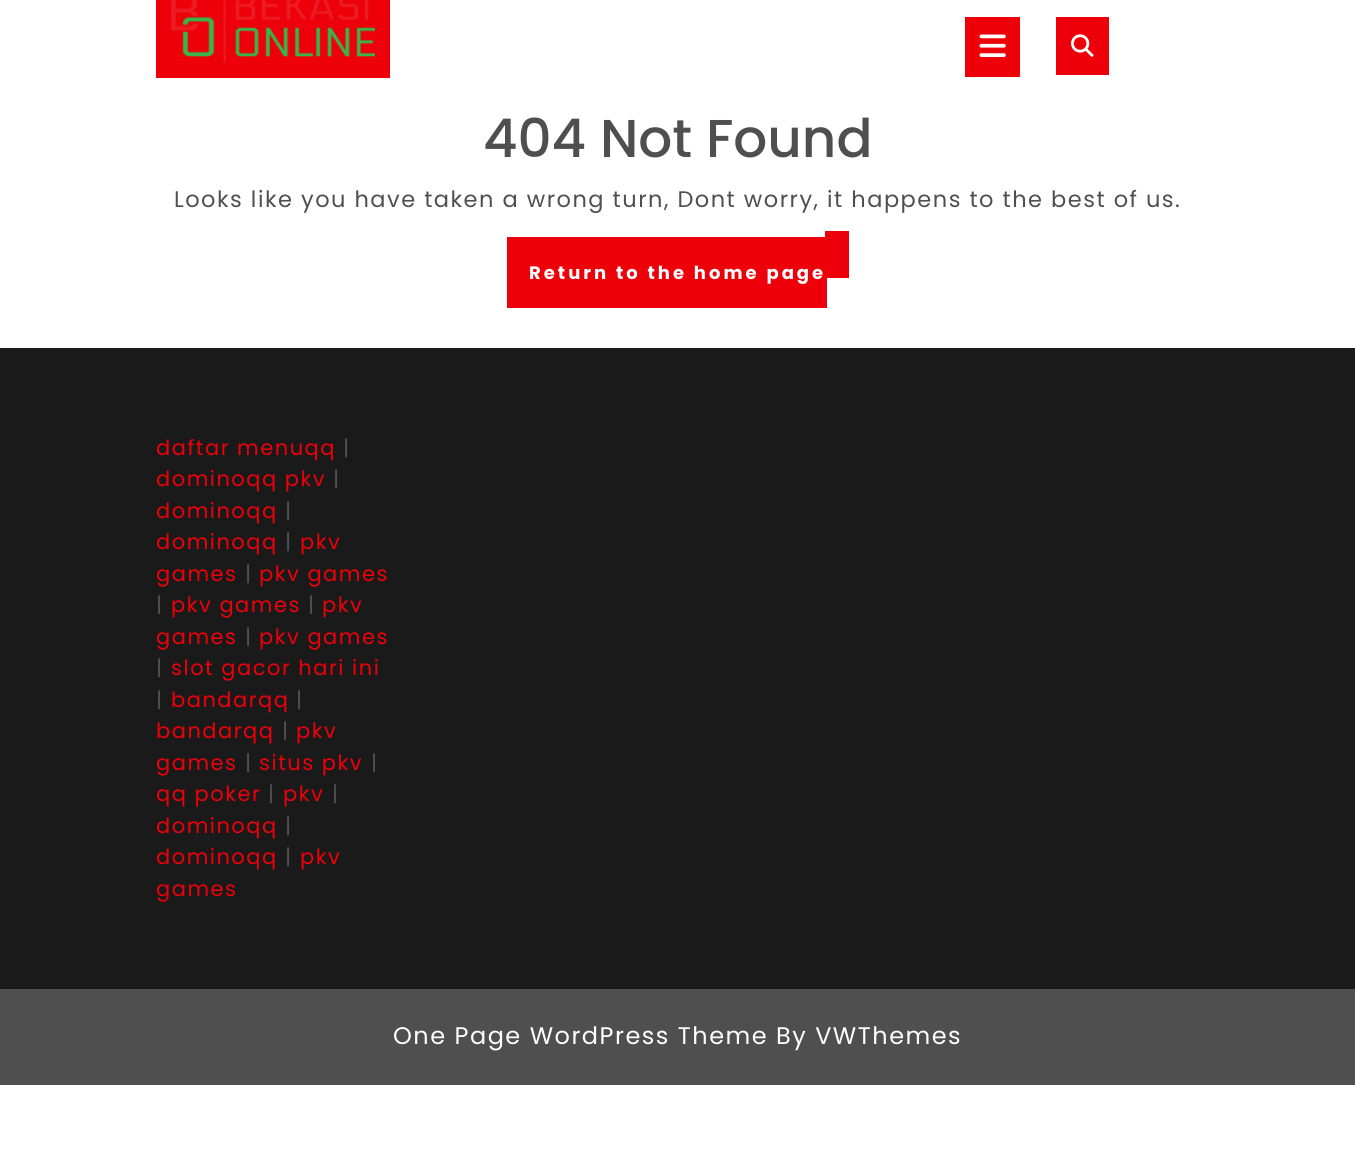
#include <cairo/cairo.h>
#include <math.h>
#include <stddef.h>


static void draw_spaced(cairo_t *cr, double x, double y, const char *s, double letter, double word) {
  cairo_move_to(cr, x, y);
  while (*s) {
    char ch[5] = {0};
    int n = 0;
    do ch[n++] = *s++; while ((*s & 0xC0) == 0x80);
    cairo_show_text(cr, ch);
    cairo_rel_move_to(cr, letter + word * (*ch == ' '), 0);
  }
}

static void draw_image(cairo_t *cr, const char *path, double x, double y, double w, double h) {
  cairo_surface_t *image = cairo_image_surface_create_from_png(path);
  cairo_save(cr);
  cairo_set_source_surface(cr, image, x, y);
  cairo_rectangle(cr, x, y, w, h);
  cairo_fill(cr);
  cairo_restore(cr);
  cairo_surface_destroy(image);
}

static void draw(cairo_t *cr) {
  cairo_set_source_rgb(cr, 1, 1, 1);
  cairo_paint(cr);
  cairo_set_source_rgb(cr, 237 / 255.0, 0, 9 / 255.0);
  cairo_rectangle(cr, 156, 0, 234, 78);
  cairo_fill(cr);
  draw_image(cr, "images/1.png", 171, 0, 204, 63);
  cairo_rectangle(cr, 965, 17, 55, 60);
  cairo_fill(cr);
  draw_image(cr, "images/2.png", 979, 34, 27, 23);
  cairo_rectangle(cr, 1056, 17, 53, 58);
  cairo_fill(cr);
  draw_image(cr, "images/3.png", 1071, 34, 23, 23);
  cairo_rectangle(cr, 507, 237, 320, 71);
  cairo_fill(cr);
  cairo_rectangle(cr, 825, 231, 24, 47);
  cairo_fill(cr);
  cairo_set_source_rgb(cr, 26 / 255.0, 26 / 255.0, 26 / 255.0);
  cairo_rectangle(cr, 0, 348, 1355, 641);
  cairo_fill(cr);
  cairo_set_source_rgb(cr, 79 / 255.0, 79 / 255.0, 79 / 255.0);
  cairo_rectangle(cr, 0, 989, 1355, 96);
  cairo_fill(cr);
  cairo_select_font_face(cr, "Poppins Medium", CAIRO_FONT_SLANT_NORMAL, CAIRO_FONT_WEIGHT_NORMAL);
  cairo_set_font_size(cr, 53.25);
  cairo_move_to(cr, 483, 157);
  cairo_show_text(cr, "404 Not Found");
  cairo_select_font_face(cr, "Poppins", CAIRO_FONT_SLANT_NORMAL, CAIRO_FONT_WEIGHT_NORMAL);
  cairo_set_font_size(cr, 22.5);
  draw_spaced(cr, 174, 207, "Looks like you have taken a wrong turn, Dont worry, it happens to the best of us.", 1.5, 0);
  cairo_select_font_face(cr, "Poppins", CAIRO_FONT_SLANT_NORMAL, CAIRO_FONT_WEIGHT_BOLD);
  cairo_set_font_size(cr, 18);
  cairo_set_source_rgb(cr, 1, 1, 1);
  draw_spaced(cr, 529, 279, "Return to the home page", 3, 0);
  cairo_select_font_face(cr, "Poppins", CAIRO_FONT_SLANT_NORMAL, CAIRO_FONT_WEIGHT_NORMAL);
  cairo_set_font_size(cr, 21);
  cairo_set_source_rgb(cr, 237 / 255.0, 0, 9 / 255.0);
  draw_spaced(cr, 156, 455, "daftar menuqq", 1.5, 0);
  cairo_set_source_rgb(cr, 79 / 255.0, 79 / 255.0, 79 / 255.0);
  draw_spaced(cr, 343, 455, "|", 1.5, 0);
  cairo_set_source_rgb(cr, 237 / 255.0, 0, 9 / 255.0);
  draw_spaced(cr, 156, 486, "dominoqq pkv", 1.5, 0);
  cairo_set_source_rgb(cr, 79 / 255.0, 79 / 255.0, 79 / 255.0);
  draw_spaced(cr, 333, 486, "|", 1.5, 0);
  cairo_set_source_rgb(cr, 237 / 255.0, 0, 9 / 255.0);
  draw_spaced(cr, 156, 518, "dominoqq", 1.5, 0);
  cairo_set_source_rgb(cr, 79 / 255.0, 79 / 255.0, 79 / 255.0);
  draw_spaced(cr, 285, 518, "|", 1.5, 0);
  cairo_set_source_rgb(cr, 237 / 255.0, 0, 9 / 255.0);
  draw_spaced(cr, 156, 549, "dominoqq", 1.5, 0);
  cairo_set_source_rgb(cr, 79 / 255.0, 79 / 255.0, 79 / 255.0);
  draw_spaced(cr, 285, 549, "|", 1.5, 0);
  cairo_set_source_rgb(cr, 237 / 255.0, 0, 9 / 255.0);
  draw_spaced(cr, 300, 549, "pkv", 1.5, 0);
  draw_spaced(cr, 156, 581, "games", 1.5, 0);
  cairo_set_source_rgb(cr, 79 / 255.0, 79 / 255.0, 79 / 255.0);
  draw_spaced(cr, 245, 581, "|", 1.5, 0);
  cairo_set_source_rgb(cr, 237 / 255.0, 0, 9 / 255.0);
  draw_spaced(cr, 259, 581, "pkv games", 1.5, 0);
  cairo_set_source_rgb(cr, 79 / 255.0, 79 / 255.0, 79 / 255.0);
  draw_spaced(cr, 156, 612, "|", 1.5, 0);
  cairo_set_source_rgb(cr, 237 / 255.0, 0, 9 / 255.0);
  draw_spaced(cr, 171, 612, "pkv games", 1.5, 0);
  cairo_set_source_rgb(cr, 79 / 255.0, 79 / 255.0, 79 / 255.0);
  draw_spaced(cr, 308, 612, "|", 1.5, 0);
  cairo_set_source_rgb(cr, 237 / 255.0, 0, 9 / 255.0);
  draw_spaced(cr, 322, 612, "pkv", 1.5, 0);
  draw_spaced(cr, 156, 644, "games", 1.5, 0);
  cairo_set_source_rgb(cr, 79 / 255.0, 79 / 255.0, 79 / 255.0);
  draw_spaced(cr, 245, 644, "|", 1.5, 0);
  cairo_set_source_rgb(cr, 237 / 255.0, 0, 9 / 255.0);
  draw_spaced(cr, 259, 644, "pkv games", 1.5, 0);
  cairo_set_source_rgb(cr, 79 / 255.0, 79 / 255.0, 79 / 255.0);
  draw_spaced(cr, 156, 675, "|", 1.5, 0);
  cairo_set_source_rgb(cr, 237 / 255.0, 0, 9 / 255.0);
  draw_spaced(cr, 171, 675, "slot gacor hari ini", 1.5, 0);
  cairo_set_source_rgb(cr, 79 / 255.0, 79 / 255.0, 79 / 255.0);
  draw_spaced(cr, 156, 707, "|", 1.5, 0);
  cairo_set_source_rgb(cr, 237 / 255.0, 0, 9 / 255.0);
  draw_spaced(cr, 171, 707, "bandarqq", 1.5, 0);
  cairo_set_source_rgb(cr, 79 / 255.0, 79 / 255.0, 79 / 255.0);
  draw_spaced(cr, 296, 707, "|", 1.5, 0);
  cairo_set_source_rgb(cr, 237 / 255.0, 0, 9 / 255.0);
  draw_spaced(cr, 156, 738, "bandarqq", 1.5, 0);
  cairo_set_source_rgb(cr, 79 / 255.0, 79 / 255.0, 79 / 255.0);
  draw_spaced(cr, 282, 738, "|", 1.5, 0);
  cairo_set_source_rgb(cr, 237 / 255.0, 0, 9 / 255.0);
  draw_spaced(cr, 296, 738, "pkv", 1.5, 0);
  draw_spaced(cr, 156, 770, "games", 1.5, 0);
  cairo_set_source_rgb(cr, 79 / 255.0, 79 / 255.0, 79 / 255.0);
  draw_spaced(cr, 245, 770, "|", 1.5, 0);
  cairo_set_source_rgb(cr, 237 / 255.0, 0, 9 / 255.0);
  draw_spaced(cr, 259, 770, "situs pkv", 1.5, 0);
  cairo_set_source_rgb(cr, 79 / 255.0, 79 / 255.0, 79 / 255.0);
  draw_spaced(cr, 371, 770, "|", 1.5, 0);
  cairo_set_source_rgb(cr, 237 / 255.0, 0, 9 / 255.0);
  draw_spaced(cr, 156, 801, "qq poker", 1.5, 0);
  cairo_set_source_rgb(cr, 79 / 255.0, 79 / 255.0, 79 / 255.0);
  draw_spaced(cr, 268, 801, "|", 1.5, 0);
  cairo_set_source_rgb(cr, 237 / 255.0, 0, 9 / 255.0);
  draw_spaced(cr, 283, 801, "pkv", 1.5, 0);
  cairo_set_source_rgb(cr, 79 / 255.0, 79 / 255.0, 79 / 255.0);
  draw_spaced(cr, 332, 801, "|", 1.5, 0);
  cairo_set_source_rgb(cr, 237 / 255.0, 0, 9 / 255.0);
  draw_spaced(cr, 156, 833, "dominoqq", 1.5, 0);
  cairo_set_source_rgb(cr, 79 / 255.0, 79 / 255.0, 79 / 255.0);
  draw_spaced(cr, 285, 833, "|", 1.5, 0);
  cairo_set_source_rgb(cr, 237 / 255.0, 0, 9 / 255.0);
  draw_spaced(cr, 156, 864, "dominoqq", 1.5, 0);
  cairo_set_source_rgb(cr, 79 / 255.0, 79 / 255.0, 79 / 255.0);
  draw_spaced(cr, 285, 864, "|", 1.5, 0);
  cairo_set_source_rgb(cr, 237 / 255.0, 0, 9 / 255.0);
  draw_spaced(cr, 300, 864, "pkv", 1.5, 0);
  draw_spaced(cr, 156, 896, "games", 1.5, 0);
  cairo_set_font_size(cr, 24);
  cairo_set_source_rgb(cr, 1, 1, 1);
  draw_spaced(cr, 393, 1044, "One Page WordPress Theme By VWThemes", 1.5, 0);
}

int main(void) {
  cairo_surface_t *surface = cairo_image_surface_create(CAIRO_FORMAT_RGB24, 1355, 1153);
  cairo_t *cr = cairo_create(surface);
  cairo_font_options_t *options = cairo_font_options_create();
  cairo_font_options_set_hint_metrics(options, CAIRO_HINT_METRICS_OFF);
  cairo_font_options_set_hint_style(options, CAIRO_HINT_STYLE_NONE);
  cairo_set_font_options(cr, options);
  cairo_set_miter_limit(cr, 4);
  draw(cr);
  cairo_surface_write_to_png(surface, "out.png");
  cairo_font_options_destroy(options);
  cairo_destroy(cr);
  cairo_surface_destroy(surface);
  return 0;
}
